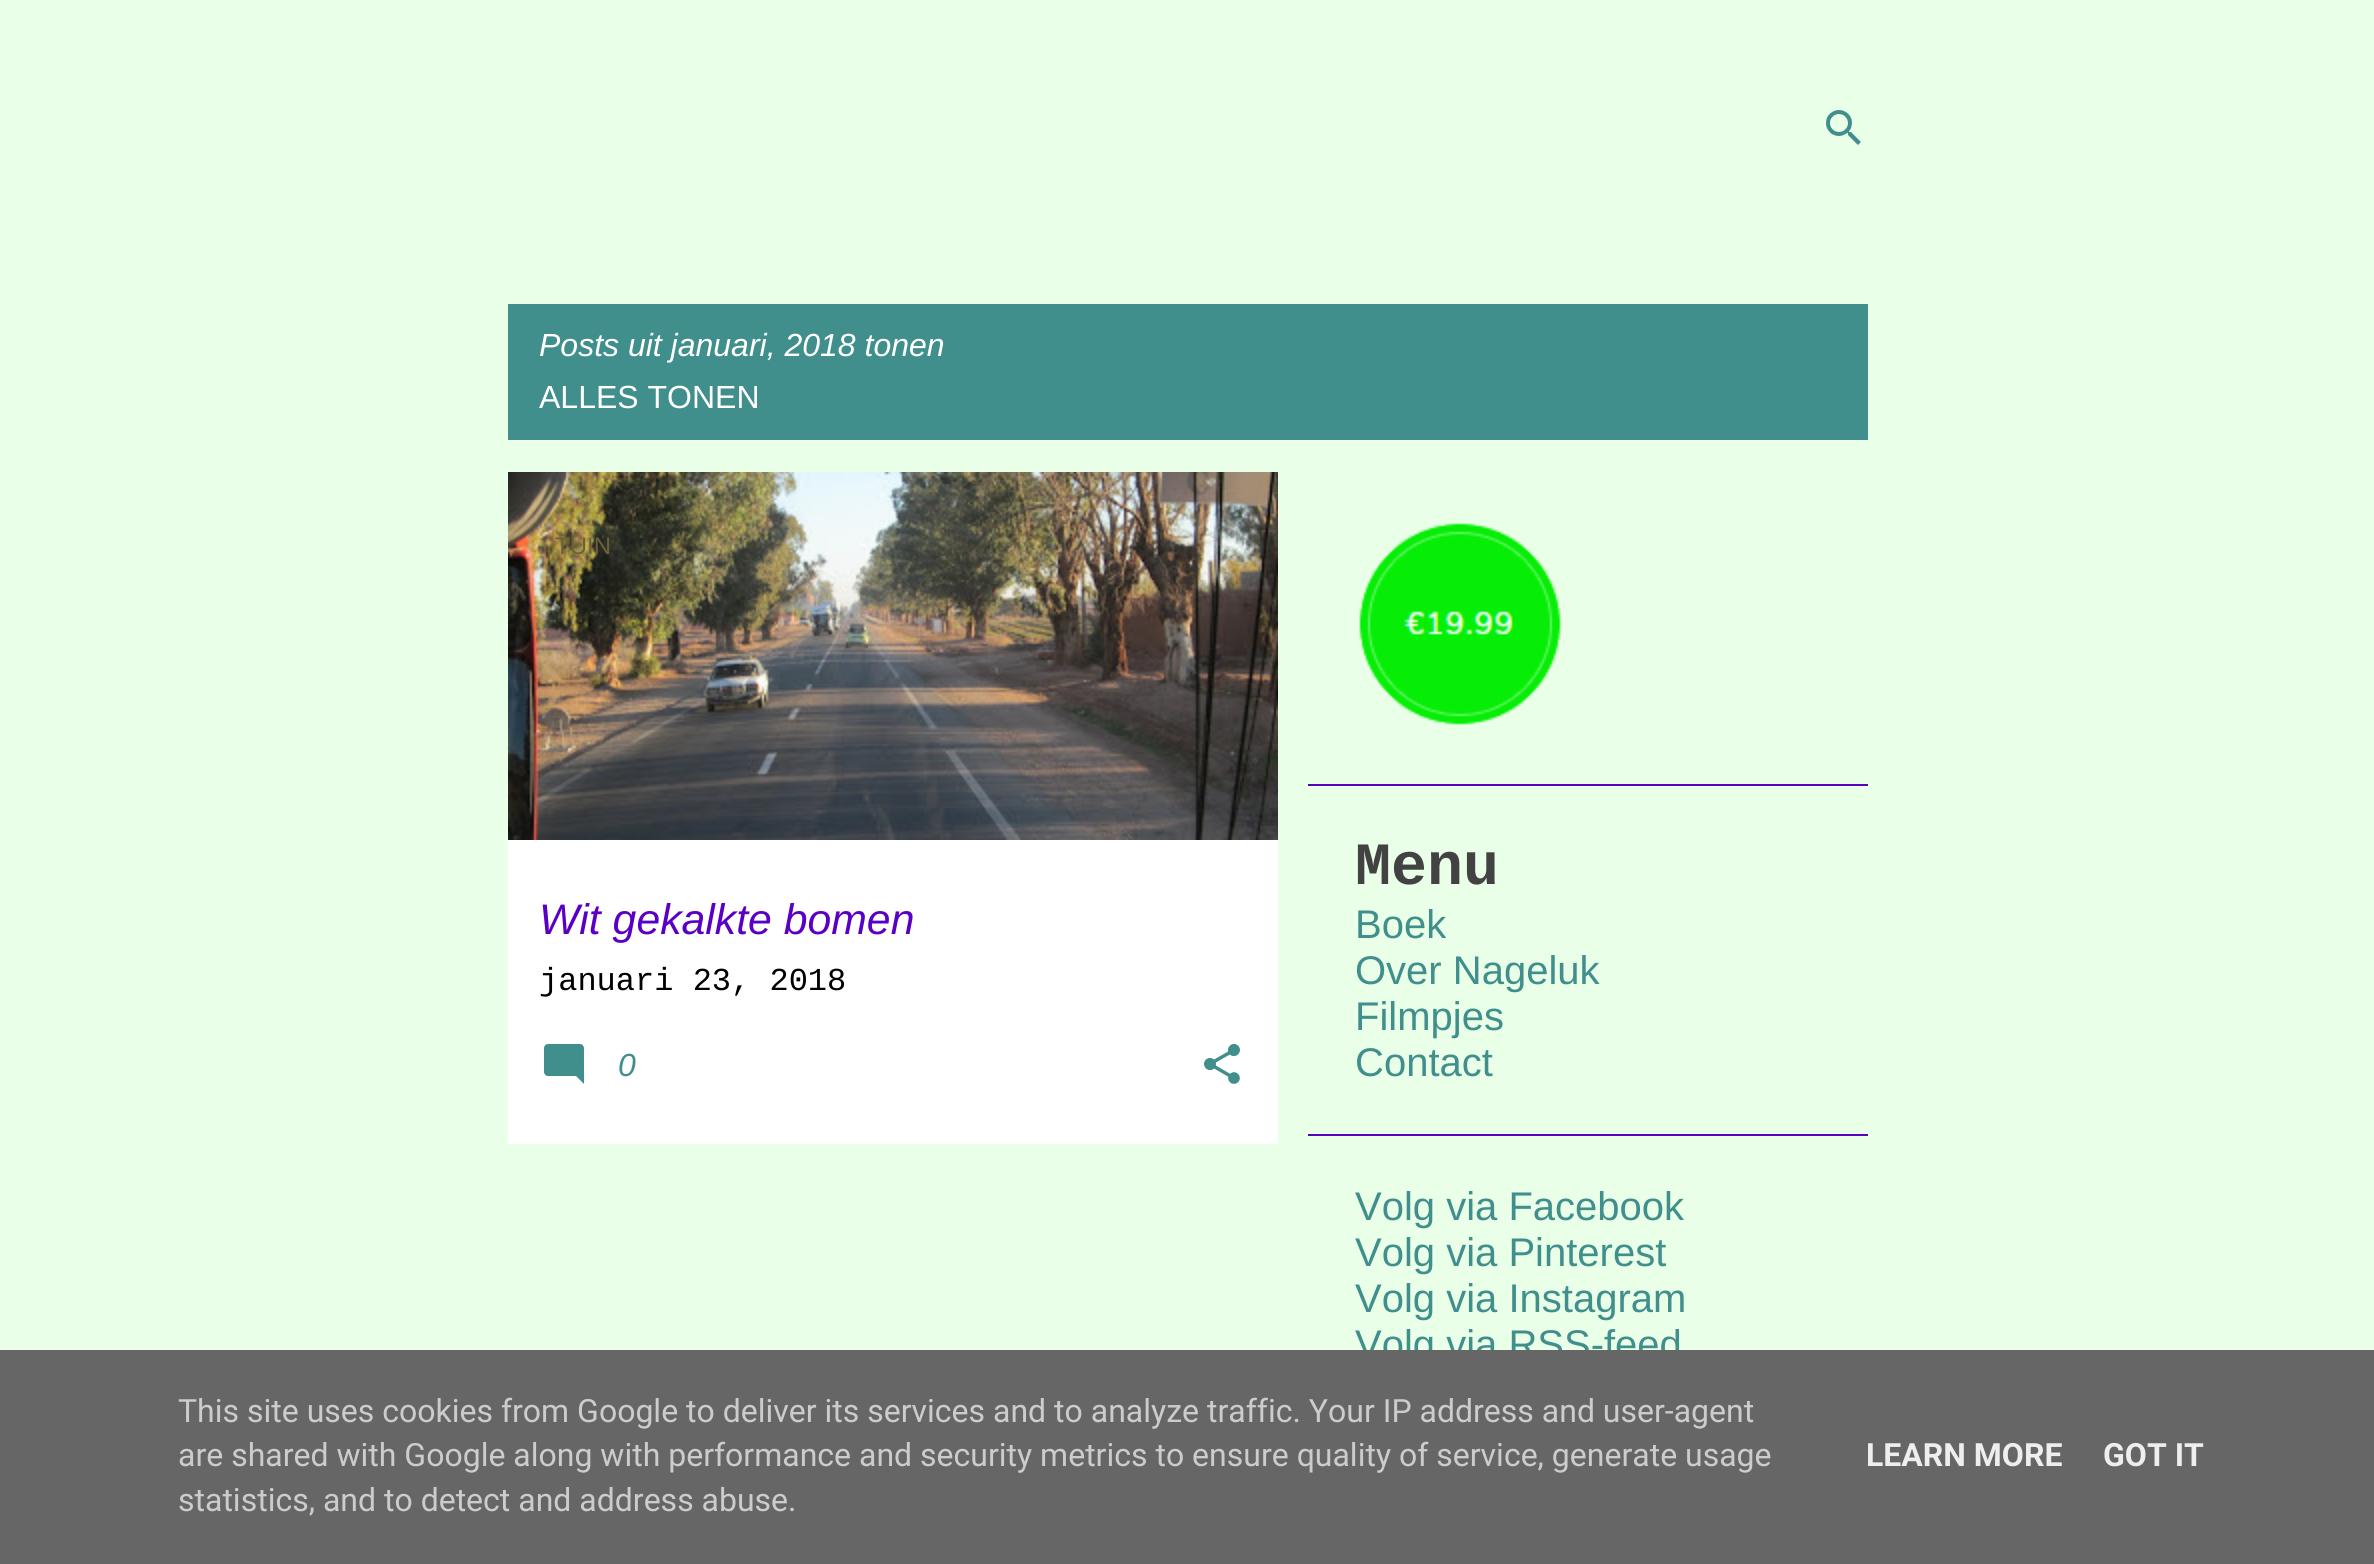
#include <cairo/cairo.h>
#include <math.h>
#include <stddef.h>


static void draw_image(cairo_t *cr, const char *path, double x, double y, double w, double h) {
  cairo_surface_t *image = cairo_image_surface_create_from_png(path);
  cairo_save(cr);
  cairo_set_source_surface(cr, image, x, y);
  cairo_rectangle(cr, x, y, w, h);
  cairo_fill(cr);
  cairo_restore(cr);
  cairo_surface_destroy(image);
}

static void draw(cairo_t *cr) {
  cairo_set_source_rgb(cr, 234 / 255.0, 1, 231 / 255.0);
  cairo_paint(cr);
  draw_image(cr, "images/1.png", 1826, 110, 35, 35);
  cairo_set_source_rgb(cr, 64 / 255.0, 143 / 255.0, 141 / 255.0);
  cairo_rectangle(cr, 508, 304, 1360, 136);
  cairo_fill(cr);
  cairo_set_source_rgb(cr, 1, 1, 1);
  cairo_rectangle(cr, 508, 840, 770, 304);
  cairo_fill(cr);
  draw_image(cr, "images/2.png", 508, 472, 770, 368);
  draw_image(cr, "images/3.png", 544, 1044, 40, 40);
  draw_image(cr, "images/4.png", 1204, 1044, 36, 40);
  draw_image(cr, "images/5.png", 1359, 523, 202, 202);
  cairo_set_source_rgb(cr, 90 / 255.0, 0, 197 / 255.0);
  cairo_rectangle(cr, 1308, 784, 560, 2);
  cairo_fill(cr);
  cairo_rectangle(cr, 1308, 1134, 560, 2);
  cairo_fill(cr);
  cairo_select_font_face(cr, "Liberation Sans", CAIRO_FONT_SLANT_ITALIC, CAIRO_FONT_WEIGHT_NORMAL);
  cairo_set_font_size(cr, 32);
  cairo_set_source_rgb(cr, 1, 1, 1);
  cairo_move_to(cr, 539, 356);
  cairo_show_text(cr, "Posts uit januari, 2018 tonen");
  cairo_select_font_face(cr, "Liberation Sans", CAIRO_FONT_SLANT_NORMAL, CAIRO_FONT_WEIGHT_NORMAL);
  cairo_move_to(cr, 539, 408);
  cairo_show_text(cr, "ALLES TONEN");
  cairo_set_font_size(cr, 24);
  cairo_set_source_rgb(cr, 109 / 255.0, 98 / 255.0, 55 / 255.0);
  cairo_move_to(cr, 555, 554);
  cairo_show_text(cr, "TUIN");
  cairo_select_font_face(cr, "Liberation Mono", CAIRO_FONT_SLANT_NORMAL, CAIRO_FONT_WEIGHT_NORMAL);
  cairo_set_font_size(cr, 32);
  cairo_set_source_rgb(cr, 0, 0, 0);
  cairo_move_to(cr, 539, 990);
  cairo_show_text(cr, "januari 23, 2018");
  cairo_select_font_face(cr, "Liberation Sans", CAIRO_FONT_SLANT_ITALIC, CAIRO_FONT_WEIGHT_NORMAL);
  cairo_set_font_size(cr, 42.75);
  cairo_set_source_rgb(cr, 90 / 255.0, 0, 197 / 255.0);
  cairo_move_to(cr, 539, 934);
  cairo_show_text(cr, "Wit gekalkte bomen");
  cairo_set_font_size(cr, 32);
  cairo_set_source_rgb(cr, 64 / 255.0, 143 / 255.0, 141 / 255.0);
  cairo_move_to(cr, 618, 1076);
  cairo_show_text(cr, "0");
  cairo_select_font_face(cr, "Liberation Mono", CAIRO_FONT_SLANT_NORMAL, CAIRO_FONT_WEIGHT_BOLD);
  cairo_set_font_size(cr, 60);
  cairo_set_source_rgb(cr, 66 / 255.0, 66 / 255.0, 66 / 255.0);
  cairo_move_to(cr, 1355, 884);
  cairo_show_text(cr, "Menu");
  cairo_select_font_face(cr, "Liberation Sans", CAIRO_FONT_SLANT_NORMAL, CAIRO_FONT_WEIGHT_NORMAL);
  cairo_set_font_size(cr, 40);
  cairo_set_source_rgb(cr, 64 / 255.0, 143 / 255.0, 141 / 255.0);
  cairo_move_to(cr, 1355, 938);
  cairo_show_text(cr, "Boek");
  cairo_move_to(cr, 1355, 984);
  cairo_show_text(cr, "Over Nageluk");
  cairo_move_to(cr, 1355, 1030);
  cairo_show_text(cr, "Filmpjes");
  cairo_move_to(cr, 1355, 1076);
  cairo_show_text(cr, "Contact");
  cairo_move_to(cr, 1355, 1220);
  cairo_show_text(cr, "Volg via Facebook");
  cairo_move_to(cr, 1355, 1266);
  cairo_show_text(cr, "Volg via Pinterest");
  cairo_move_to(cr, 1355, 1312);
  cairo_show_text(cr, "Volg via Instagram");
  cairo_move_to(cr, 1355, 1358);
  cairo_show_text(cr, "Volg via RSS-feed");
  cairo_set_source_rgb(cr, 102 / 255.0, 102 / 255.0, 102 / 255.0);
  cairo_rectangle(cr, 0, 1350, 2374, 214);
  cairo_fill(cr);
  cairo_select_font_face(cr, "Roboto", CAIRO_FONT_SLANT_NORMAL, CAIRO_FONT_WEIGHT_NORMAL);
  cairo_set_font_size(cr, 32);
  cairo_set_source_rgb(cr, 204 / 255.0, 204 / 255.0, 204 / 255.0);
  cairo_move_to(cr, 178, 1422);
  cairo_show_text(cr, "This site uses cookies from Google to deliver its services and to analyze traffic. Your IP address and user-agent");
  cairo_move_to(cr, 178, 1466);
  cairo_show_text(cr, "are shared with Google along with performance and security metrics to ensure quality of service, generate usage");
  cairo_move_to(cr, 178, 1511);
  cairo_show_text(cr, "statistics, and to detect and address abuse.");
  cairo_select_font_face(cr, "Roboto", CAIRO_FONT_SLANT_NORMAL, CAIRO_FONT_WEIGHT_BOLD);
  cairo_set_source_rgb(cr, 238 / 255.0, 238 / 255.0, 238 / 255.0);
  cairo_move_to(cr, 1866, 1466);
  cairo_show_text(cr, "LEARN MORE");
  cairo_move_to(cr, 2103, 1466);
  cairo_show_text(cr, "GOT IT");
}

int main(void) {
  cairo_surface_t *surface = cairo_image_surface_create(CAIRO_FORMAT_RGB24, 2374, 1564);
  cairo_t *cr = cairo_create(surface);
  cairo_font_options_t *options = cairo_font_options_create();
  cairo_font_options_set_hint_metrics(options, CAIRO_HINT_METRICS_OFF);
  cairo_font_options_set_hint_style(options, CAIRO_HINT_STYLE_NONE);
  cairo_set_font_options(cr, options);
  cairo_set_miter_limit(cr, 4);
  draw(cr);
  cairo_surface_write_to_png(surface, "out.png");
  cairo_font_options_destroy(options);
  cairo_destroy(cr);
  cairo_surface_destroy(surface);
  return 0;
}
